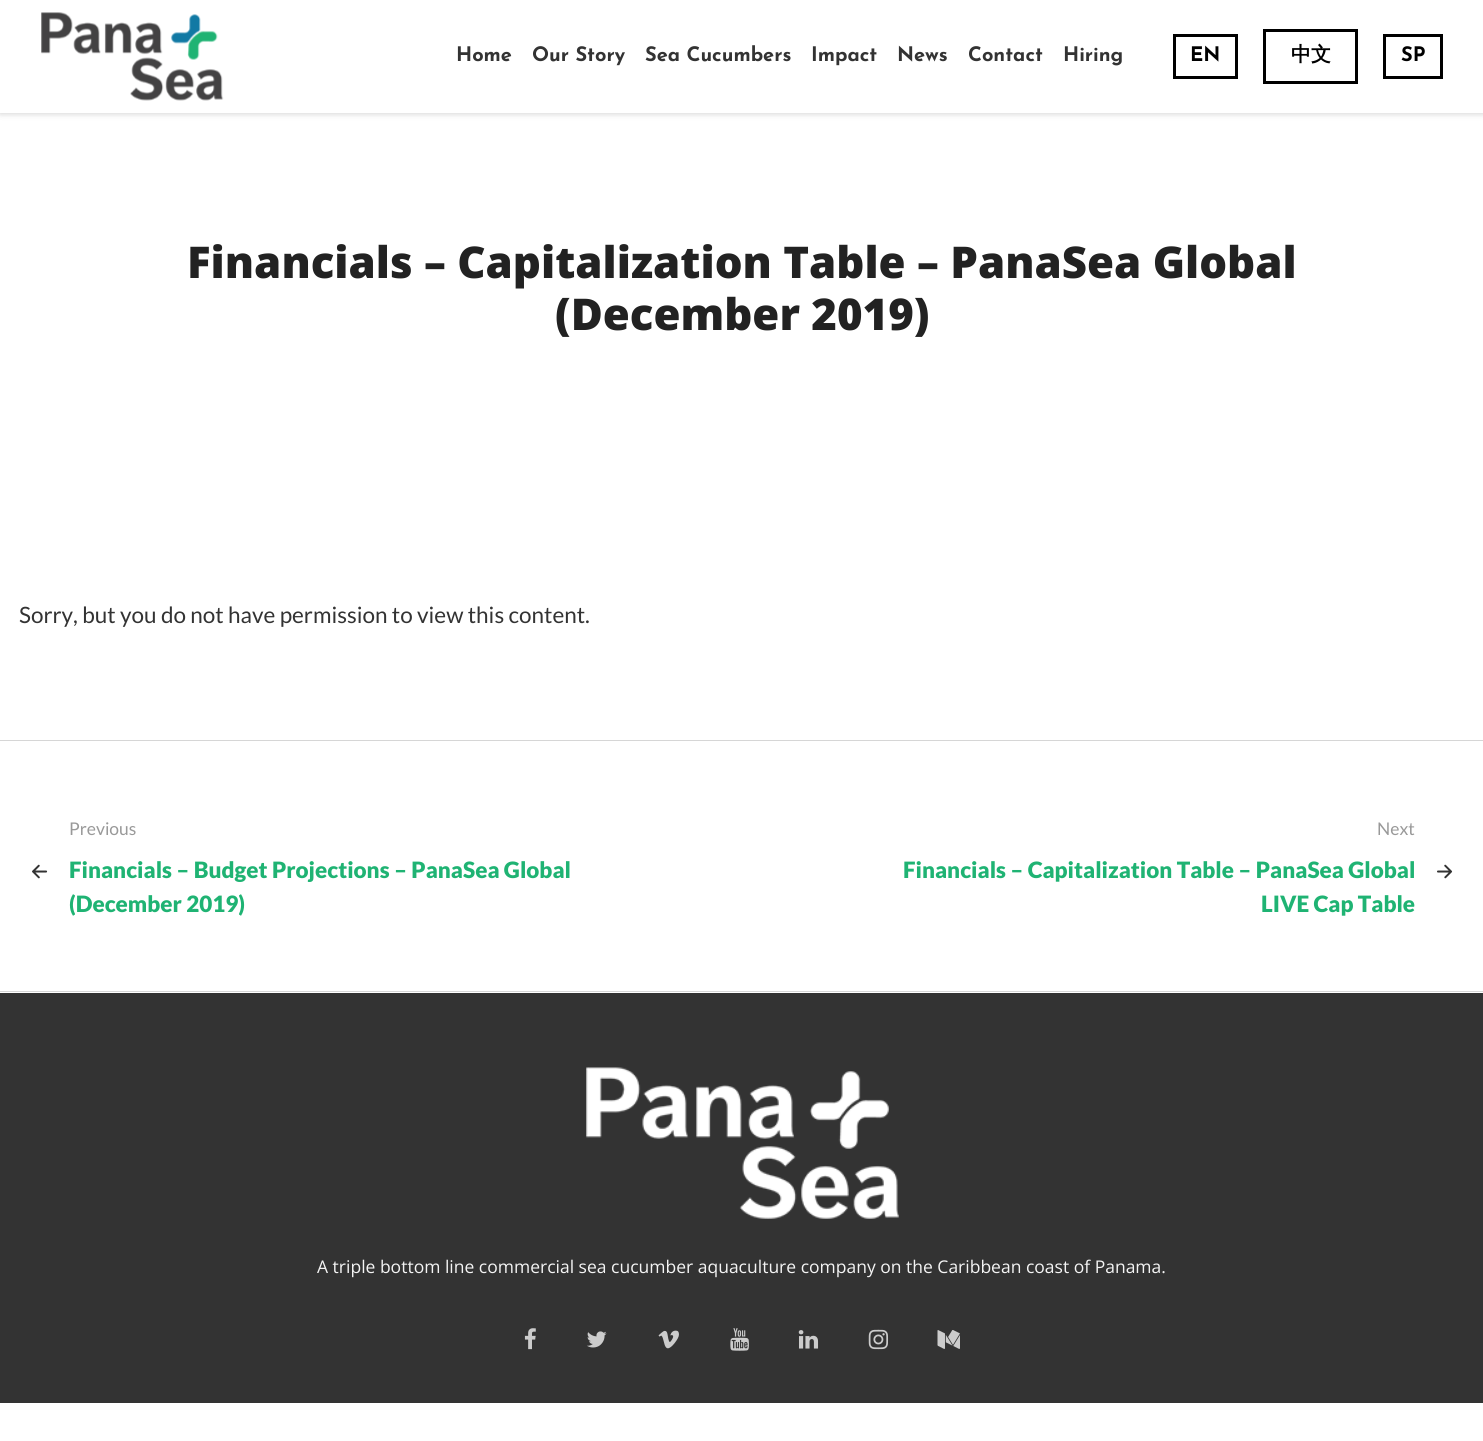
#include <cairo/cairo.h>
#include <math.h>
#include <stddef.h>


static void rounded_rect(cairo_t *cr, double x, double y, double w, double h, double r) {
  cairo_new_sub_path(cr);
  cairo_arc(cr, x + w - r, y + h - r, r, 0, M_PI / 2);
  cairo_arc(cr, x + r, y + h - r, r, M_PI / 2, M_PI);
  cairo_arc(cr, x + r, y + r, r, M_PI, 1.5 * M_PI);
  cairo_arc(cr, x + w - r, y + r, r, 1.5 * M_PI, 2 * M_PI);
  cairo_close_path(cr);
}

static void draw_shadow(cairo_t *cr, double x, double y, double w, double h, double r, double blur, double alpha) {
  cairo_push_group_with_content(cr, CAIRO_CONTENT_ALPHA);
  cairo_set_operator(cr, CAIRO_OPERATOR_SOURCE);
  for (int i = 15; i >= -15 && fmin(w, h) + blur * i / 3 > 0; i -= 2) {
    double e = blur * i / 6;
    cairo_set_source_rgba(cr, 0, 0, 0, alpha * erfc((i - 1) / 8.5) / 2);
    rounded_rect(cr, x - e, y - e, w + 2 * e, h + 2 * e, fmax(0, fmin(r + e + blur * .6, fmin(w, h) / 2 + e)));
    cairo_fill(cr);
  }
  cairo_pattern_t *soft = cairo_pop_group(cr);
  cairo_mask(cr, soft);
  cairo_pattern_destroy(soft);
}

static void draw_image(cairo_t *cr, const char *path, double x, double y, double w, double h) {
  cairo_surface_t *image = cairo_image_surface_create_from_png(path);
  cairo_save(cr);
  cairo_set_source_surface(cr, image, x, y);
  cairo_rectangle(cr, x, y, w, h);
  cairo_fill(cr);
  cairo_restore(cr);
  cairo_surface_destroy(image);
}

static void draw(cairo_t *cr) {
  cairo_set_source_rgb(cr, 1, 1, 1);
  cairo_paint(cr);
  cairo_set_source_rgb(cr, 0, 0, 0);
  draw_shadow(cr, 0, 1, 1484, 113, 0, 3, 0.17);
  cairo_set_source_rgb(cr, 1, 1, 1);
  cairo_rectangle(cr, 0, 0, 1483, 113);
  cairo_fill(cr);
  draw_image(cr, "images/1.png", 41, 12, 183, 89);
  cairo_rectangle(cr, 1174.5, 35.5, 62, 42);
  cairo_set_source_rgb(cr, 0, 0, 0);
  cairo_set_line_width(cr, 3);
  cairo_stroke(cr);
  cairo_rectangle(cr, 1264.5, 30.5, 92, 52);
  cairo_stroke(cr);
  cairo_rectangle(cr, 1384.5, 35.5, 57, 42);
  cairo_stroke(cr);
  cairo_set_source_rgb(cr, 214 / 255.0, 214 / 255.0, 214 / 255.0);
  cairo_rectangle(cr, 0, 740, 1483, 1);
  cairo_fill(cr);
  cairo_rectangle(cr, 0, 991, 1483, 1);
  cairo_fill(cr);
  draw_image(cr, "images/2.png", 32, 864, 16, 15);
  draw_image(cr, "images/3.png", 1437, 864, 16, 15);
  cairo_set_source_rgb(cr, 51 / 255.0, 51 / 255.0, 51 / 255.0);
  cairo_rectangle(cr, 0, 993, 1483, 410);
  cairo_fill(cr);
  draw_image(cr, "images/4.png", 586, 1067, 313, 152);
  draw_image(cr, "images/5.png", 524, 1328, 12, 22);
  draw_image(cr, "images/6.png", 587, 1331, 20, 17);
  draw_image(cr, "images/7.png", 658, 1330, 21, 19);
  draw_image(cr, "images/8.png", 730, 1328, 19, 23);
  draw_image(cr, "images/9.png", 798, 1330, 21, 19);
  draw_image(cr, "images/10.png", 868, 1329, 21, 21);
  draw_image(cr, "images/11.png", 937, 1330, 23, 19);
  cairo_select_font_face(cr, "Josefin Sans", CAIRO_FONT_SLANT_NORMAL, CAIRO_FONT_WEIGHT_BOLD);
  cairo_set_font_size(cr, 20);
  cairo_move_to(cr, 456, 61);
  cairo_show_text(cr, "Home");
  cairo_move_to(cr, 532, 61);
  cairo_show_text(cr, "Our Story");
  cairo_move_to(cr, 645, 61);
  cairo_show_text(cr, "Sea Cucumbers");
  cairo_move_to(cr, 811, 61);
  cairo_show_text(cr, "Impact");
  cairo_move_to(cr, 897, 61);
  cairo_show_text(cr, "News");
  cairo_move_to(cr, 968, 61);
  cairo_show_text(cr, "Contact");
  cairo_move_to(cr, 1063, 61);
  cairo_show_text(cr, "Hiring");
  cairo_set_source_rgb(cr, 0, 0, 0);
  cairo_move_to(cr, 1190, 61);
  cairo_show_text(cr, "EN");
  cairo_select_font_face(cr, "WenQuanYi Zen Hei", CAIRO_FONT_SLANT_NORMAL, CAIRO_FONT_WEIGHT_BOLD);
  cairo_move_to(cr, 1291, 61);
  cairo_show_text(cr, "中文");
  cairo_select_font_face(cr, "Josefin Sans", CAIRO_FONT_SLANT_NORMAL, CAIRO_FONT_WEIGHT_BOLD);
  cairo_move_to(cr, 1401, 61);
  cairo_show_text(cr, "SP");
  cairo_select_font_face(cr, "Open Sans ExtraBold", CAIRO_FONT_SLANT_NORMAL, CAIRO_FONT_WEIGHT_NORMAL);
  cairo_set_font_size(cr, 43.75);
  cairo_set_source_rgb(cr, 34 / 255.0, 34 / 255.0, 34 / 255.0);
  cairo_move_to(cr, 187, 278);
  cairo_show_text(cr, "Financials – Capitalization Table – PanaSea Global");
  cairo_move_to(cr, 555, 330);
  cairo_show_text(cr, "(December 2019)");
  cairo_select_font_face(cr, "Lato", CAIRO_FONT_SLANT_NORMAL, CAIRO_FONT_WEIGHT_NORMAL);
  cairo_set_font_size(cr, 22.5);
  cairo_set_source_rgb(cr, 51 / 255.0, 51 / 255.0, 51 / 255.0);
  cairo_move_to(cr, 19, 623);
  cairo_show_text(cr, "Sorry, but you do not have permission to view this content.");
  cairo_set_font_size(cr, 17.5);
  cairo_set_source_rgb(cr, 153 / 255.0, 153 / 255.0, 153 / 255.0);
  cairo_move_to(cr, 69, 835);
  cairo_show_text(cr, "Previous");
  cairo_select_font_face(cr, "Lato Black", CAIRO_FONT_SLANT_NORMAL, CAIRO_FONT_WEIGHT_NORMAL);
  cairo_set_font_size(cr, 22.5);
  cairo_set_source_rgb(cr, 31 / 255.0, 179 / 255.0, 115 / 255.0);
  cairo_move_to(cr, 69, 878);
  cairo_show_text(cr, "Financials – Budget Projections – PanaSea Global");
  cairo_move_to(cr, 69, 912);
  cairo_show_text(cr, "(December 2019)");
  cairo_select_font_face(cr, "Lato", CAIRO_FONT_SLANT_NORMAL, CAIRO_FONT_WEIGHT_NORMAL);
  cairo_set_font_size(cr, 17.5);
  cairo_set_source_rgb(cr, 153 / 255.0, 153 / 255.0, 153 / 255.0);
  cairo_move_to(cr, 1377, 835);
  cairo_show_text(cr, "Next");
  cairo_select_font_face(cr, "Lato Black", CAIRO_FONT_SLANT_NORMAL, CAIRO_FONT_WEIGHT_NORMAL);
  cairo_set_font_size(cr, 22.5);
  cairo_set_source_rgb(cr, 31 / 255.0, 179 / 255.0, 115 / 255.0);
  cairo_move_to(cr, 903, 878);
  cairo_show_text(cr, "Financials – Capitalization Table – PanaSea Global");
  cairo_move_to(cr, 1261, 912);
  cairo_show_text(cr, "LIVE Cap Table");
  cairo_select_font_face(cr, "Open Sans", CAIRO_FONT_SLANT_NORMAL, CAIRO_FONT_WEIGHT_NORMAL);
  cairo_set_font_size(cr, 17.5);
  cairo_set_source_rgb(cr, 244 / 255.0, 244 / 255.0, 244 / 255.0);
  cairo_move_to(cr, 317, 1273);
  cairo_show_text(cr, "A triple bottom line commercial sea cucumber aquaculture company on the Caribbean coast of Panama.");
}

int main(void) {
  cairo_surface_t *surface = cairo_image_surface_create(CAIRO_FORMAT_RGB24, 1483, 1441);
  cairo_t *cr = cairo_create(surface);
  cairo_font_options_t *options = cairo_font_options_create();
  cairo_font_options_set_hint_metrics(options, CAIRO_HINT_METRICS_OFF);
  cairo_font_options_set_hint_style(options, CAIRO_HINT_STYLE_NONE);
  cairo_set_font_options(cr, options);
  cairo_set_miter_limit(cr, 4);
  draw(cr);
  cairo_surface_write_to_png(surface, "out.png");
  cairo_font_options_destroy(options);
  cairo_destroy(cr);
  cairo_surface_destroy(surface);
  return 0;
}
